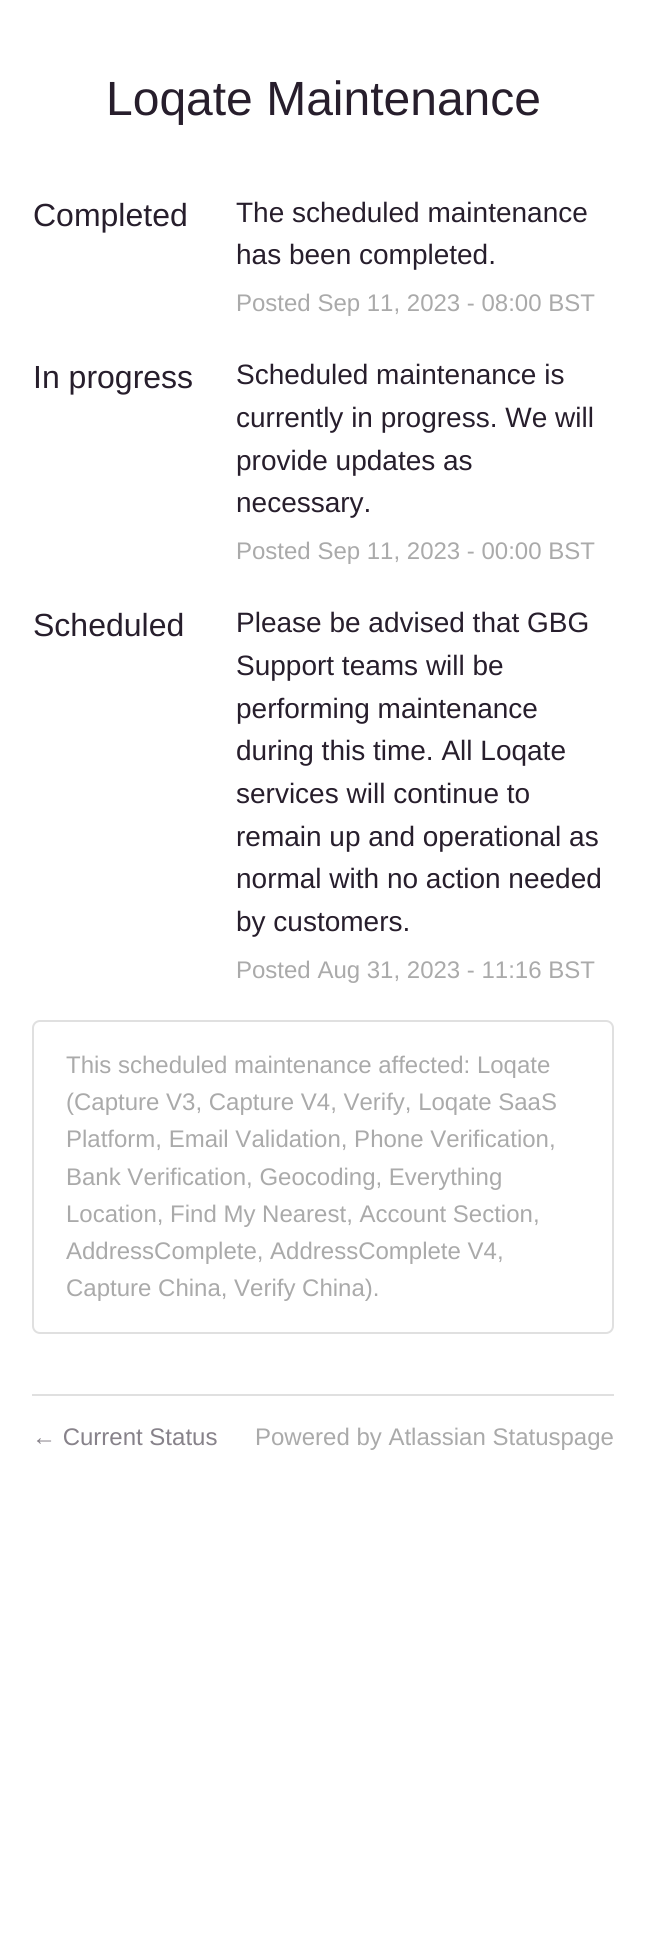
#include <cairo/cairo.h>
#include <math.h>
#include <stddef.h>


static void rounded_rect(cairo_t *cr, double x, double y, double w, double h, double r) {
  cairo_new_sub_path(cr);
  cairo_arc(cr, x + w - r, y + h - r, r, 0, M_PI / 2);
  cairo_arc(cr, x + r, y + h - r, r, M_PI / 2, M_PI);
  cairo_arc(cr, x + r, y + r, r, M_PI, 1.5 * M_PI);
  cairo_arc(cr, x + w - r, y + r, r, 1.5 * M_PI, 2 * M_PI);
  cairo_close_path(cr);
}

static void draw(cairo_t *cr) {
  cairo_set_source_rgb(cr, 1, 1, 1);
  cairo_paint(cr);
  rounded_rect(cr, 33, 1021, 580, 312, 7);
  cairo_set_source_rgb(cr, 224 / 255.0, 224 / 255.0, 224 / 255.0);
  cairo_stroke(cr);
  cairo_rectangle(cr, 32, 1394, 582, 2);
  cairo_fill(cr);
  cairo_select_font_face(cr, "Liberation Sans", CAIRO_FONT_SLANT_NORMAL, CAIRO_FONT_WEIGHT_NORMAL);
  cairo_set_font_size(cr, 48);
  cairo_set_source_rgb(cr, 39 / 255.0, 30 / 255.0, 44 / 255.0);
  cairo_move_to(cr, 106, 115);
  cairo_show_text(cr, "Loqate Maintenance");
  cairo_set_font_size(cr, 32);
  cairo_move_to(cr, 33, 226);
  cairo_show_text(cr, "Completed");
  cairo_set_font_size(cr, 28);
  cairo_move_to(cr, 236, 222);
  cairo_show_text(cr, "The scheduled maintenance");
  cairo_move_to(cr, 236, 264);
  cairo_show_text(cr, "has been completed.");
  cairo_set_font_size(cr, 24);
  cairo_set_source_rgb(cr, 170 / 255.0, 170 / 255.0, 170 / 255.0);
  cairo_move_to(cr, 236, 311);
  cairo_show_text(cr, "Posted Sep 11, 2023 - 08:00 BST");
  cairo_set_font_size(cr, 32);
  cairo_set_source_rgb(cr, 39 / 255.0, 30 / 255.0, 44 / 255.0);
  cairo_move_to(cr, 33, 388);
  cairo_show_text(cr, "In progress");
  cairo_set_font_size(cr, 28);
  cairo_move_to(cr, 236, 384);
  cairo_show_text(cr, "Scheduled maintenance is");
  cairo_move_to(cr, 236, 427);
  cairo_show_text(cr, "currently in progress. We will");
  cairo_move_to(cr, 236, 470);
  cairo_show_text(cr, "provide updates as");
  cairo_move_to(cr, 236, 512);
  cairo_show_text(cr, "necessary.");
  cairo_set_font_size(cr, 24);
  cairo_set_source_rgb(cr, 170 / 255.0, 170 / 255.0, 170 / 255.0);
  cairo_move_to(cr, 236, 559);
  cairo_show_text(cr, "Posted Sep 11, 2023 - 00:00 BST");
  cairo_set_font_size(cr, 32);
  cairo_set_source_rgb(cr, 39 / 255.0, 30 / 255.0, 44 / 255.0);
  cairo_move_to(cr, 33, 636);
  cairo_show_text(cr, "Scheduled");
  cairo_set_font_size(cr, 28);
  cairo_move_to(cr, 236, 632);
  cairo_show_text(cr, "Please be advised that GBG");
  cairo_move_to(cr, 236, 675);
  cairo_show_text(cr, "Support teams will be");
  cairo_move_to(cr, 236, 718);
  cairo_show_text(cr, "performing maintenance");
  cairo_move_to(cr, 236, 760);
  cairo_show_text(cr, "during this time. All Loqate");
  cairo_move_to(cr, 236, 803);
  cairo_show_text(cr, "services will continue to");
  cairo_move_to(cr, 236, 846);
  cairo_show_text(cr, "remain up and operational as");
  cairo_move_to(cr, 236, 888);
  cairo_show_text(cr, "normal with no action needed");
  cairo_move_to(cr, 236, 931);
  cairo_show_text(cr, "by customers.");
  cairo_set_font_size(cr, 24);
  cairo_set_source_rgb(cr, 170 / 255.0, 170 / 255.0, 170 / 255.0);
  cairo_move_to(cr, 236, 978);
  cairo_show_text(cr, "Posted Aug 31, 2023 - 11:16 BST");
  cairo_move_to(cr, 66, 1073);
  cairo_show_text(cr, "This scheduled maintenance affected: Loqate");
  cairo_move_to(cr, 66, 1110);
  cairo_show_text(cr, "(Capture V3, Capture V4, Verify, Loqate SaaS");
  cairo_move_to(cr, 66, 1147);
  cairo_show_text(cr, "Platform, Email Validation, Phone Verification,");
  cairo_move_to(cr, 66, 1185);
  cairo_show_text(cr, "Bank Verification, Geocoding, Everything");
  cairo_move_to(cr, 66, 1222);
  cairo_show_text(cr, "Location, Find My Nearest, Account Section,");
  cairo_move_to(cr, 66, 1259);
  cairo_show_text(cr, "AddressComplete, AddressComplete V4,");
  cairo_move_to(cr, 66, 1296);
  cairo_show_text(cr, "Capture China, Verify China).");
  cairo_set_source_rgb(cr, 135 / 255.0, 130 / 255.0, 138 / 255.0);
  cairo_move_to(cr, 32, 1445);
  cairo_show_text(cr, "← Current Status");
  cairo_set_source_rgb(cr, 170 / 255.0, 170 / 255.0, 170 / 255.0);
  cairo_move_to(cr, 255, 1445);
  cairo_show_text(cr, "Powered by Atlassian Statuspage");
}

int main(void) {
  cairo_surface_t *surface = cairo_image_surface_create(CAIRO_FORMAT_RGB24, 645, 1957);
  cairo_t *cr = cairo_create(surface);
  cairo_font_options_t *options = cairo_font_options_create();
  cairo_font_options_set_hint_metrics(options, CAIRO_HINT_METRICS_OFF);
  cairo_font_options_set_hint_style(options, CAIRO_HINT_STYLE_NONE);
  cairo_set_font_options(cr, options);
  cairo_set_miter_limit(cr, 4);
  draw(cr);
  cairo_surface_write_to_png(surface, "out.png");
  cairo_font_options_destroy(options);
  cairo_destroy(cr);
  cairo_surface_destroy(surface);
  return 0;
}
